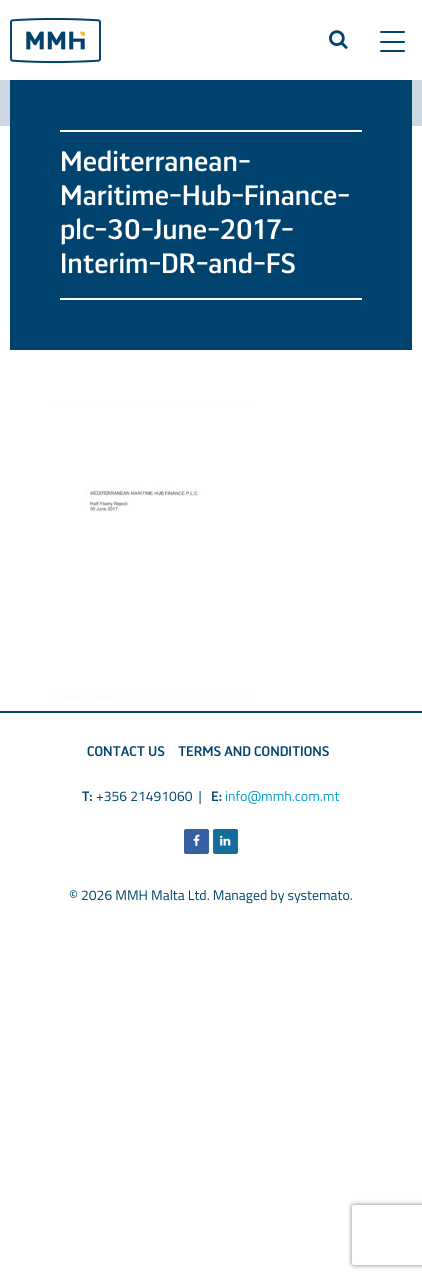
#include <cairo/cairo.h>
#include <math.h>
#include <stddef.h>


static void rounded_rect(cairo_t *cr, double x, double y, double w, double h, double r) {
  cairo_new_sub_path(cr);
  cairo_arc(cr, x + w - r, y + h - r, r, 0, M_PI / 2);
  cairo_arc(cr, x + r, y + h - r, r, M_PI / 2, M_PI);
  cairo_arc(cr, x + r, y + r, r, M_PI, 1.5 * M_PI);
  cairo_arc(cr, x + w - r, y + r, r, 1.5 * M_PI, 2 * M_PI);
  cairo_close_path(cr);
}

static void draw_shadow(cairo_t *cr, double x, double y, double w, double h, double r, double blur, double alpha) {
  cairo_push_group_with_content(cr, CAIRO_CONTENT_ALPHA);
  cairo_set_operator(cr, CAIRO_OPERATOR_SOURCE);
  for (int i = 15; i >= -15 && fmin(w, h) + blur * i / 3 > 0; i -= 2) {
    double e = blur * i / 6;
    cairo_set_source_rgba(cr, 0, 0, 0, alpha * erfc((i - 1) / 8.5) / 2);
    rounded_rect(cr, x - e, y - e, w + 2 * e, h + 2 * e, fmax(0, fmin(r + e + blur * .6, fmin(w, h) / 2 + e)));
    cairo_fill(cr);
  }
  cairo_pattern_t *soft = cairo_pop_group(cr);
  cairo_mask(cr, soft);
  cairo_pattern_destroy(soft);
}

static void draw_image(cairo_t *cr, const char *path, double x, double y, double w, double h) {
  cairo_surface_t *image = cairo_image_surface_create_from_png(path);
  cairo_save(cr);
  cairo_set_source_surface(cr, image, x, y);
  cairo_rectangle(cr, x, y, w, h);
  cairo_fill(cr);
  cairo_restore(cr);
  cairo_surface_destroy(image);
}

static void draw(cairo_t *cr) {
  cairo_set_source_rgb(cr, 1, 1, 1);
  cairo_paint(cr);
  draw_image(cr, "images/1.png", 10, 18, 91, 45);
  draw_image(cr, "images/2.png", 329, 30, 19, 19);
  cairo_set_source_rgb(cr, 0, 67 / 255.0, 110 / 255.0);
  rounded_rect(cr, 380, 31, 25, 2, 1);
  cairo_fill(cr);
  rounded_rect(cr, 380, 41, 25, 2, 1);
  cairo_fill(cr);
  rounded_rect(cr, 380, 50, 25, 2, 1);
  cairo_fill(cr);
  cairo_set_source_rgb(cr, 204 / 255.0, 217 / 255.0, 226 / 255.0);
  cairo_rectangle(cr, 0, 80, 422, 46);
  cairo_fill(cr);
  cairo_set_source_rgb(cr, 0, 67 / 255.0, 110 / 255.0);
  cairo_rectangle(cr, 10, 80, 402, 270);
  cairo_fill(cr);
  cairo_set_source_rgb(cr, 1, 1, 1);
  cairo_rectangle(cr, 60, 130, 302, 2);
  cairo_fill(cr);
  cairo_rectangle(cr, 60, 298, 302, 2);
  cairo_fill(cr);
  draw_image(cr, "images/3.png", 48, 403, 205, 295);
  cairo_set_source_rgb(cr, 0, 67 / 255.0, 110 / 255.0);
  cairo_rectangle(cr, 0, 711, 422, 2);
  cairo_fill(cr);
  cairo_set_source_rgb(cr, 52 / 255.0, 96 / 255.0, 161 / 255.0);
  rounded_rect(cr, 184, 829, 25, 25, 2);
  cairo_fill(cr);
  draw_image(cr, "images/4.png", 193, 834, 7, 12);
  cairo_set_source_rgb(cr, 19 / 255.0, 109 / 255.0, 157 / 255.0);
  rounded_rect(cr, 213, 829, 25, 25, 2);
  cairo_fill(cr);
  draw_image(cr, "images/5.png", 220, 835, 11, 11);
  cairo_save(cr);
  cairo_set_fill_rule(cr, CAIRO_FILL_RULE_EVEN_ODD);
  cairo_new_path(cr);
  cairo_move_to(cr, 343, 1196);
  cairo_line_to(cr, 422, 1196);
  cairo_line_to(cr, 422, 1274);
  cairo_line_to(cr, 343, 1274);
  cairo_close_path(cr);
  cairo_move_to(cr, 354, 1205);
  cairo_line_to(cr, 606, 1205);
  cairo_curve_to(cr, 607, 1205, 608, 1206, 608, 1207);
  cairo_line_to(cr, 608, 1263);
  cairo_curve_to(cr, 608, 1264, 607, 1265, 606, 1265);
  cairo_line_to(cr, 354, 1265);
  cairo_curve_to(cr, 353, 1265, 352, 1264, 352, 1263);
  cairo_line_to(cr, 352, 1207);
  cairo_curve_to(cr, 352, 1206, 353, 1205, 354, 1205);
  cairo_close_path(cr);
  cairo_clip(cr);
  cairo_set_source_rgb(cr, 128 / 255.0, 128 / 255.0, 128 / 255.0);
  draw_shadow(cr, 352, 1205, 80, 60, 2, 2.5, 1);
  cairo_restore(cr);
  cairo_select_font_face(cr, "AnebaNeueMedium", CAIRO_FONT_SLANT_NORMAL, CAIRO_FONT_WEIGHT_NORMAL);
  cairo_set_font_size(cr, 28);
  cairo_set_source_rgb(cr, 1, 1, 1);
  cairo_move_to(cr, 60, 171);
  cairo_show_text(cr, "Mediterranean-");
  cairo_move_to(cr, 60, 205);
  cairo_show_text(cr, "Maritime-Hub-Finance-");
  cairo_move_to(cr, 60, 239);
  cairo_show_text(cr, "plc-30-June-2017-");
  cairo_move_to(cr, 60, 273);
  cairo_show_text(cr, "Interim-DR-and-FS");
  cairo_set_font_size(cr, 13.9);
  cairo_set_source_rgb(cr, 0, 67 / 255.0, 110 / 255.0);
  cairo_move_to(cr, 87, 756);
  cairo_show_text(cr, "CONTACT US");
  cairo_move_to(cr, 178, 756);
  cairo_show_text(cr, "TERMS AND CONDITIONS");
  cairo_select_font_face(cr, "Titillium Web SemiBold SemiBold", CAIRO_FONT_SLANT_NORMAL, CAIRO_FONT_WEIGHT_NORMAL);
  cairo_move_to(cr, 82, 801);
  cairo_show_text(cr, "T:");
  cairo_select_font_face(cr, "Titillium Web", CAIRO_FONT_SLANT_NORMAL, CAIRO_FONT_WEIGHT_NORMAL);
  cairo_move_to(cr, 96, 801);
  cairo_show_text(cr, "+356 21491060  |");
  cairo_select_font_face(cr, "Titillium Web SemiBold SemiBold", CAIRO_FONT_SLANT_NORMAL, CAIRO_FONT_WEIGHT_NORMAL);
  cairo_move_to(cr, 211, 801);
  cairo_show_text(cr, "E:");
  cairo_select_font_face(cr, "Titillium Web", CAIRO_FONT_SLANT_NORMAL, CAIRO_FONT_WEIGHT_NORMAL);
  cairo_set_source_rgb(cr, 0, 160 / 255.0, 207 / 255.0);
  cairo_move_to(cr, 225, 801);
  cairo_show_text(cr, "info@mmh.com.mt");
  cairo_set_source_rgb(cr, 0, 67 / 255.0, 110 / 255.0);
  cairo_move_to(cr, 69, 900);
  cairo_show_text(cr, "© 2026 MMH Malta Ltd. Managed by systemato.");
}

int main(void) {
  cairo_surface_t *surface = cairo_image_surface_create(CAIRO_FORMAT_RGB24, 422, 1279);
  cairo_t *cr = cairo_create(surface);
  cairo_font_options_t *options = cairo_font_options_create();
  cairo_font_options_set_hint_metrics(options, CAIRO_HINT_METRICS_OFF);
  cairo_font_options_set_hint_style(options, CAIRO_HINT_STYLE_NONE);
  cairo_set_font_options(cr, options);
  cairo_set_miter_limit(cr, 4);
  draw(cr);
  cairo_surface_write_to_png(surface, "out.png");
  cairo_font_options_destroy(options);
  cairo_destroy(cr);
  cairo_surface_destroy(surface);
  return 0;
}
